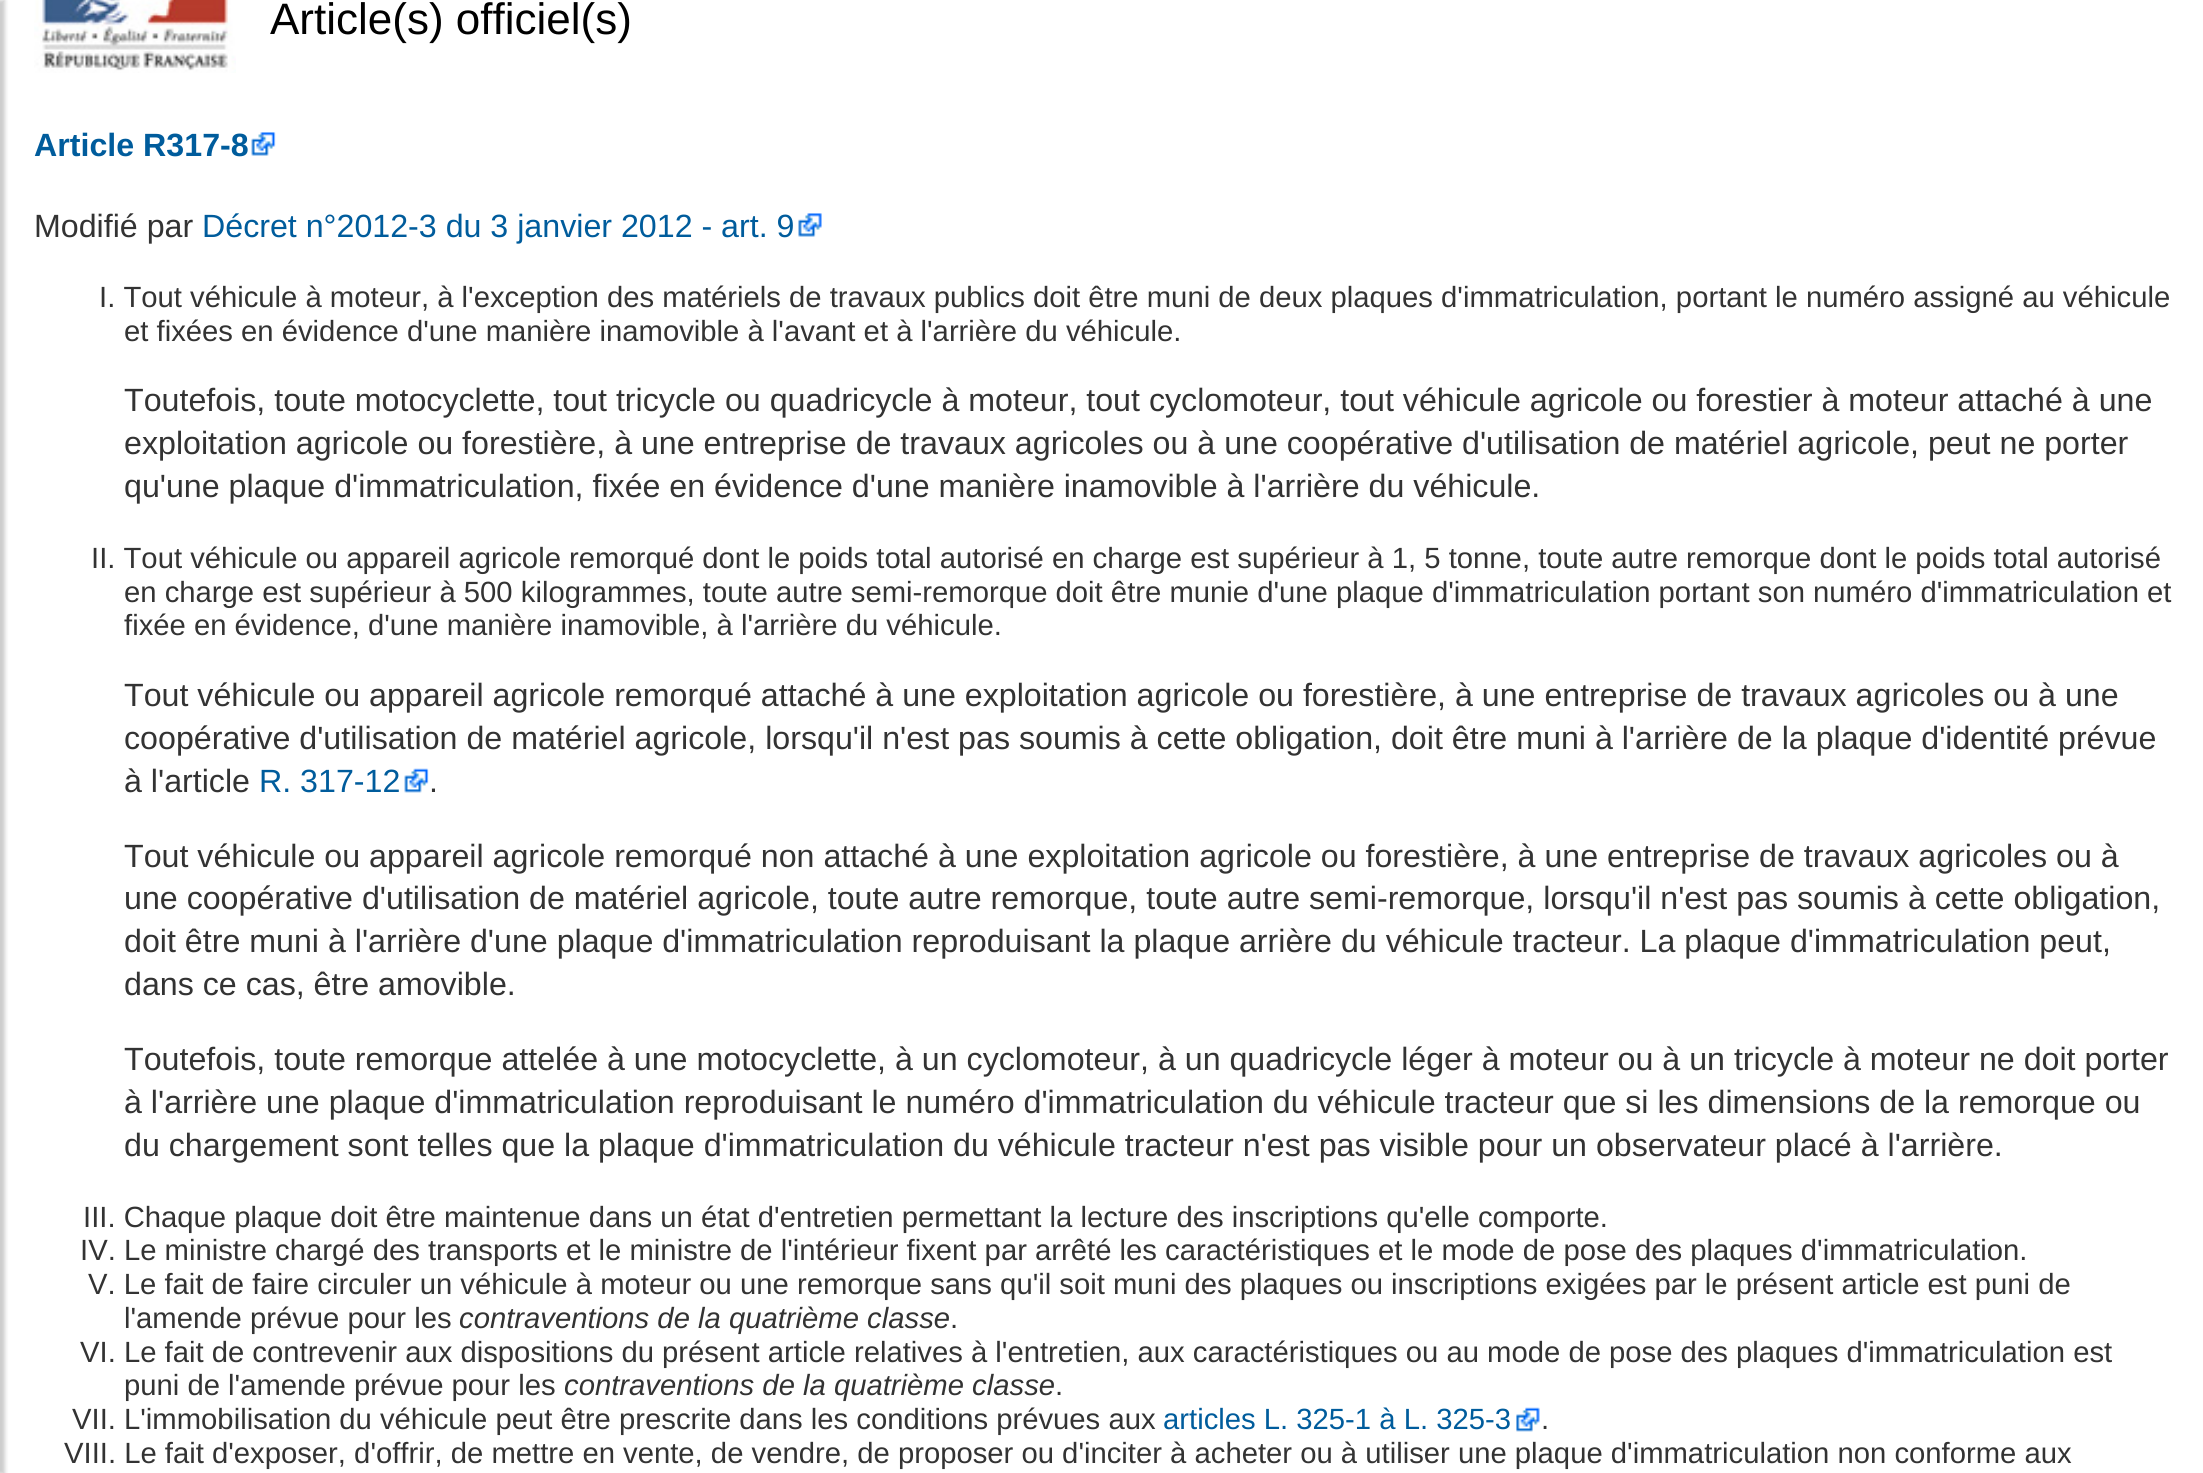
#include <cairo/cairo.h>
#include <math.h>
#include <stddef.h>


static void rounded_rect(cairo_t *cr, double x, double y, double w, double h, double r) {
  cairo_new_sub_path(cr);
  cairo_arc(cr, x + w - r, y + h - r, r, 0, M_PI / 2);
  cairo_arc(cr, x + r, y + h - r, r, M_PI / 2, M_PI);
  cairo_arc(cr, x + r, y + r, r, M_PI, 1.5 * M_PI);
  cairo_arc(cr, x + w - r, y + r, r, 1.5 * M_PI, 2 * M_PI);
  cairo_close_path(cr);
}

static void draw_shadow(cairo_t *cr, double x, double y, double w, double h, double r, double blur, double alpha) {
  cairo_push_group_with_content(cr, CAIRO_CONTENT_ALPHA);
  cairo_set_operator(cr, CAIRO_OPERATOR_SOURCE);
  for (int i = 15; i >= -15 && fmin(w, h) + blur * i / 3 > 0; i -= 2) {
    double e = blur * i / 6;
    cairo_set_source_rgba(cr, 0, 0, 0, alpha * erfc((i - 1) / 8.5) / 2);
    rounded_rect(cr, x - e, y - e, w + 2 * e, h + 2 * e, fmax(0, fmin(r + e + blur * .6, fmin(w, h) / 2 + e)));
    cairo_fill(cr);
  }
  cairo_pattern_t *soft = cairo_pop_group(cr);
  cairo_mask(cr, soft);
  cairo_pattern_destroy(soft);
}

static void draw_image(cairo_t *cr, const char *path, double x, double y, double w, double h) {
  cairo_surface_t *image = cairo_image_surface_create_from_png(path);
  cairo_save(cr);
  cairo_set_source_surface(cr, image, x, y);
  cairo_rectangle(cr, x, y, w, h);
  cairo_fill(cr);
  cairo_restore(cr);
  cairo_surface_destroy(image);
}

static void draw(cairo_t *cr) {
  cairo_set_source_rgb(cr, 1, 1, 1);
  cairo_paint(cr);
  cairo_set_source_rgb(cr, 0, 0, 0);
  draw_shadow(cr, -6, 0, 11, 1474, 0, 2, 0.2);
  draw_image(cr, "images/1.png", 34, 0, 202, 73);
  draw_image(cr, "images/2.png", 251, 132, 25, 24);
  draw_image(cr, "images/3.png", 798, 213, 24, 24);
  draw_image(cr, "images/4.png", 404, 768, 25, 25);
  draw_image(cr, "images/5.png", 1516, 1407, 24, 25);
  cairo_select_font_face(cr, "Liberation Sans", CAIRO_FONT_SLANT_NORMAL, CAIRO_FONT_WEIGHT_NORMAL);
  cairo_set_font_size(cr, 44);
  cairo_set_source_rgb(cr, 0, 0, 0);
  cairo_move_to(cr, 270, 34);
  cairo_show_text(cr, "Article(s) officiel(s)");
  cairo_select_font_face(cr, "Liberation Sans", CAIRO_FONT_SLANT_NORMAL, CAIRO_FONT_WEIGHT_BOLD);
  cairo_set_font_size(cr, 32.18);
  cairo_set_source_rgb(cr, 0, 92 / 255.0, 156 / 255.0);
  cairo_move_to(cr, 34, 156);
  cairo_show_text(cr, "Article R317-8");
  cairo_select_font_face(cr, "Liberation Sans", CAIRO_FONT_SLANT_NORMAL, CAIRO_FONT_WEIGHT_NORMAL);
  cairo_set_source_rgb(cr, 51 / 255.0, 51 / 255.0, 51 / 255.0);
  cairo_move_to(cr, 34, 237);
  cairo_show_text(cr, "Modifié par");
  cairo_set_source_rgb(cr, 0, 92 / 255.0, 156 / 255.0);
  cairo_move_to(cr, 202, 237);
  cairo_show_text(cr, "Décret n°2012-3 du 3 janvier 2012 - art. 9");
  cairo_set_font_size(cr, 29.25);
  cairo_set_source_rgb(cr, 51 / 255.0, 51 / 255.0, 51 / 255.0);
  cairo_move_to(cr, 99, 307);
  cairo_show_text(cr, "I. Tout véhicule à moteur, à l'exception des matériels de travaux publics doit être muni de deux plaques d'immatriculation, portant le numéro assigné au véhicule");
  cairo_move_to(cr, 124, 341);
  cairo_show_text(cr, "et fixées en évidence d'une manière inamovible à l'avant et à l'arrière du véhicule.");
  cairo_set_font_size(cr, 32.18);
  cairo_move_to(cr, 124, 411);
  cairo_show_text(cr, "Toutefois, toute motocyclette, tout tricycle ou quadricycle à moteur, tout cyclomoteur, tout véhicule agricole ou forestier à moteur attaché à une");
  cairo_move_to(cr, 124, 454);
  cairo_show_text(cr, "exploitation agricole ou forestière, à une entreprise de travaux agricoles ou à une coopérative d'utilisation de matériel agricole, peut ne porter");
  cairo_move_to(cr, 124, 497);
  cairo_show_text(cr, "qu'une plaque d'immatriculation, fixée en évidence d'une manière inamovible à l'arrière du véhicule.");
  cairo_set_font_size(cr, 29.25);
  cairo_move_to(cr, 91, 568);
  cairo_show_text(cr, "II. Tout véhicule ou appareil agricole remorqué dont le poids total autorisé en charge est supérieur à 1, 5 tonne, toute autre remorque dont le poids total autorisé");
  cairo_move_to(cr, 124, 602);
  cairo_show_text(cr, "en charge est supérieur à 500 kilogrammes, toute autre semi-remorque doit être munie d'une plaque d'immatriculation portant son numéro d'immatriculation et");
  cairo_move_to(cr, 124, 635);
  cairo_show_text(cr, "fixée en évidence, d'une manière inamovible, à l'arrière du véhicule.");
  cairo_set_font_size(cr, 32.18);
  cairo_move_to(cr, 124, 706);
  cairo_show_text(cr, "Tout véhicule ou appareil agricole remorqué attaché à une exploitation agricole ou forestière, à une entreprise de travaux agricoles ou à une");
  cairo_move_to(cr, 124, 749);
  cairo_show_text(cr, "coopérative d'utilisation de matériel agricole, lorsqu'il n'est pas soumis à cette obligation, doit être muni à l'arrière de la plaque d'identité prévue");
  cairo_move_to(cr, 124, 792);
  cairo_show_text(cr, "à l'article");
  cairo_set_source_rgb(cr, 0, 92 / 255.0, 156 / 255.0);
  cairo_move_to(cr, 259, 792);
  cairo_show_text(cr, "R. 317-12");
  cairo_set_source_rgb(cr, 51 / 255.0, 51 / 255.0, 51 / 255.0);
  cairo_move_to(cr, 429, 792);
  cairo_show_text(cr, ".");
  cairo_move_to(cr, 124, 867);
  cairo_show_text(cr, "Tout véhicule ou appareil agricole remorqué non attaché à une exploitation agricole ou forestière, à une entreprise de travaux agricoles ou à");
  cairo_move_to(cr, 124, 909);
  cairo_show_text(cr, "une coopérative d'utilisation de matériel agricole, toute autre remorque, toute autre semi-remorque, lorsqu'il n'est pas soumis à cette obligation,");
  cairo_move_to(cr, 124, 952);
  cairo_show_text(cr, "doit être muni à l'arrière d'une plaque d'immatriculation reproduisant la plaque arrière du véhicule tracteur. La plaque d'immatriculation peut,");
  cairo_move_to(cr, 124, 995);
  cairo_show_text(cr, "dans ce cas, être amovible.");
  cairo_move_to(cr, 124, 1070);
  cairo_show_text(cr, "Toutefois, toute remorque attelée à une motocyclette, à un cyclomoteur, à un quadricycle léger à moteur ou à un tricycle à moteur ne doit porter");
  cairo_move_to(cr, 124, 1113);
  cairo_show_text(cr, "à l'arrière une plaque d'immatriculation reproduisant le numéro d'immatriculation du véhicule tracteur que si les dimensions de la remorque ou");
  cairo_move_to(cr, 124, 1156);
  cairo_show_text(cr, "du chargement sont telles que la plaque d'immatriculation du véhicule tracteur n'est pas visible pour un observateur placé à l'arrière.");
  cairo_set_font_size(cr, 29.25);
  cairo_move_to(cr, 83, 1227);
  cairo_show_text(cr, "III. Chaque plaque doit être maintenue dans un état d'entretien permettant la lecture des inscriptions qu'elle comporte.");
  cairo_move_to(cr, 80, 1260);
  cairo_show_text(cr, "IV. Le ministre chargé des transports et le ministre de l'intérieur fixent par arrêté les caractéristiques et le mode de pose des plaques d'immatriculation.");
  cairo_move_to(cr, 88, 1294);
  cairo_show_text(cr, "V. Le fait de faire circuler un véhicule à moteur ou une remorque sans qu'il soit muni des plaques ou inscriptions exigées par le présent article est puni de");
  cairo_move_to(cr, 124, 1328);
  cairo_show_text(cr, "l'amende prévue pour les");
  cairo_select_font_face(cr, "Liberation Sans", CAIRO_FONT_SLANT_ITALIC, CAIRO_FONT_WEIGHT_NORMAL);
  cairo_move_to(cr, 459, 1328);
  cairo_show_text(cr, "contraventions de la quatrième classe");
  cairo_select_font_face(cr, "Liberation Sans", CAIRO_FONT_SLANT_NORMAL, CAIRO_FONT_WEIGHT_NORMAL);
  cairo_move_to(cr, 950, 1328);
  cairo_show_text(cr, ".");
  cairo_move_to(cr, 80, 1362);
  cairo_show_text(cr, "VI. Le fait de contrevenir aux dispositions du présent article relatives à l'entretien, aux caractéristiques ou au mode de pose des plaques d'immatriculation est");
  cairo_move_to(cr, 124, 1395);
  cairo_show_text(cr, "puni de l'amende prévue pour les");
  cairo_select_font_face(cr, "Liberation Sans", CAIRO_FONT_SLANT_ITALIC, CAIRO_FONT_WEIGHT_NORMAL);
  cairo_move_to(cr, 564, 1395);
  cairo_show_text(cr, "contraventions de la quatrième classe");
  cairo_select_font_face(cr, "Liberation Sans", CAIRO_FONT_SLANT_NORMAL, CAIRO_FONT_WEIGHT_NORMAL);
  cairo_move_to(cr, 1055, 1395);
  cairo_show_text(cr, ".");
  cairo_move_to(cr, 72, 1429);
  cairo_show_text(cr, "VII. L'immobilisation du véhicule peut être prescrite dans les conditions prévues aux");
  cairo_set_source_rgb(cr, 0, 92 / 255.0, 156 / 255.0);
  cairo_move_to(cr, 1163, 1429);
  cairo_show_text(cr, "articles L. 325-1 à L. 325-3");
  cairo_set_source_rgb(cr, 51 / 255.0, 51 / 255.0, 51 / 255.0);
  cairo_move_to(cr, 1541, 1429);
  cairo_show_text(cr, ".");
  cairo_move_to(cr, 64, 1463);
  cairo_show_text(cr, "VIII. Le fait d'exposer, d'offrir, de mettre en vente, de vendre, de proposer ou d'inciter à acheter ou à utiliser une plaque d'immatriculation non conforme aux");
}

int main(void) {
  cairo_surface_t *surface = cairo_image_surface_create(CAIRO_FORMAT_RGB24, 2203, 1473);
  cairo_t *cr = cairo_create(surface);
  cairo_font_options_t *options = cairo_font_options_create();
  cairo_font_options_set_hint_metrics(options, CAIRO_HINT_METRICS_OFF);
  cairo_font_options_set_hint_style(options, CAIRO_HINT_STYLE_NONE);
  cairo_set_font_options(cr, options);
  cairo_set_miter_limit(cr, 4);
  draw(cr);
  cairo_surface_write_to_png(surface, "out.png");
  cairo_font_options_destroy(options);
  cairo_destroy(cr);
  cairo_surface_destroy(surface);
  return 0;
}
